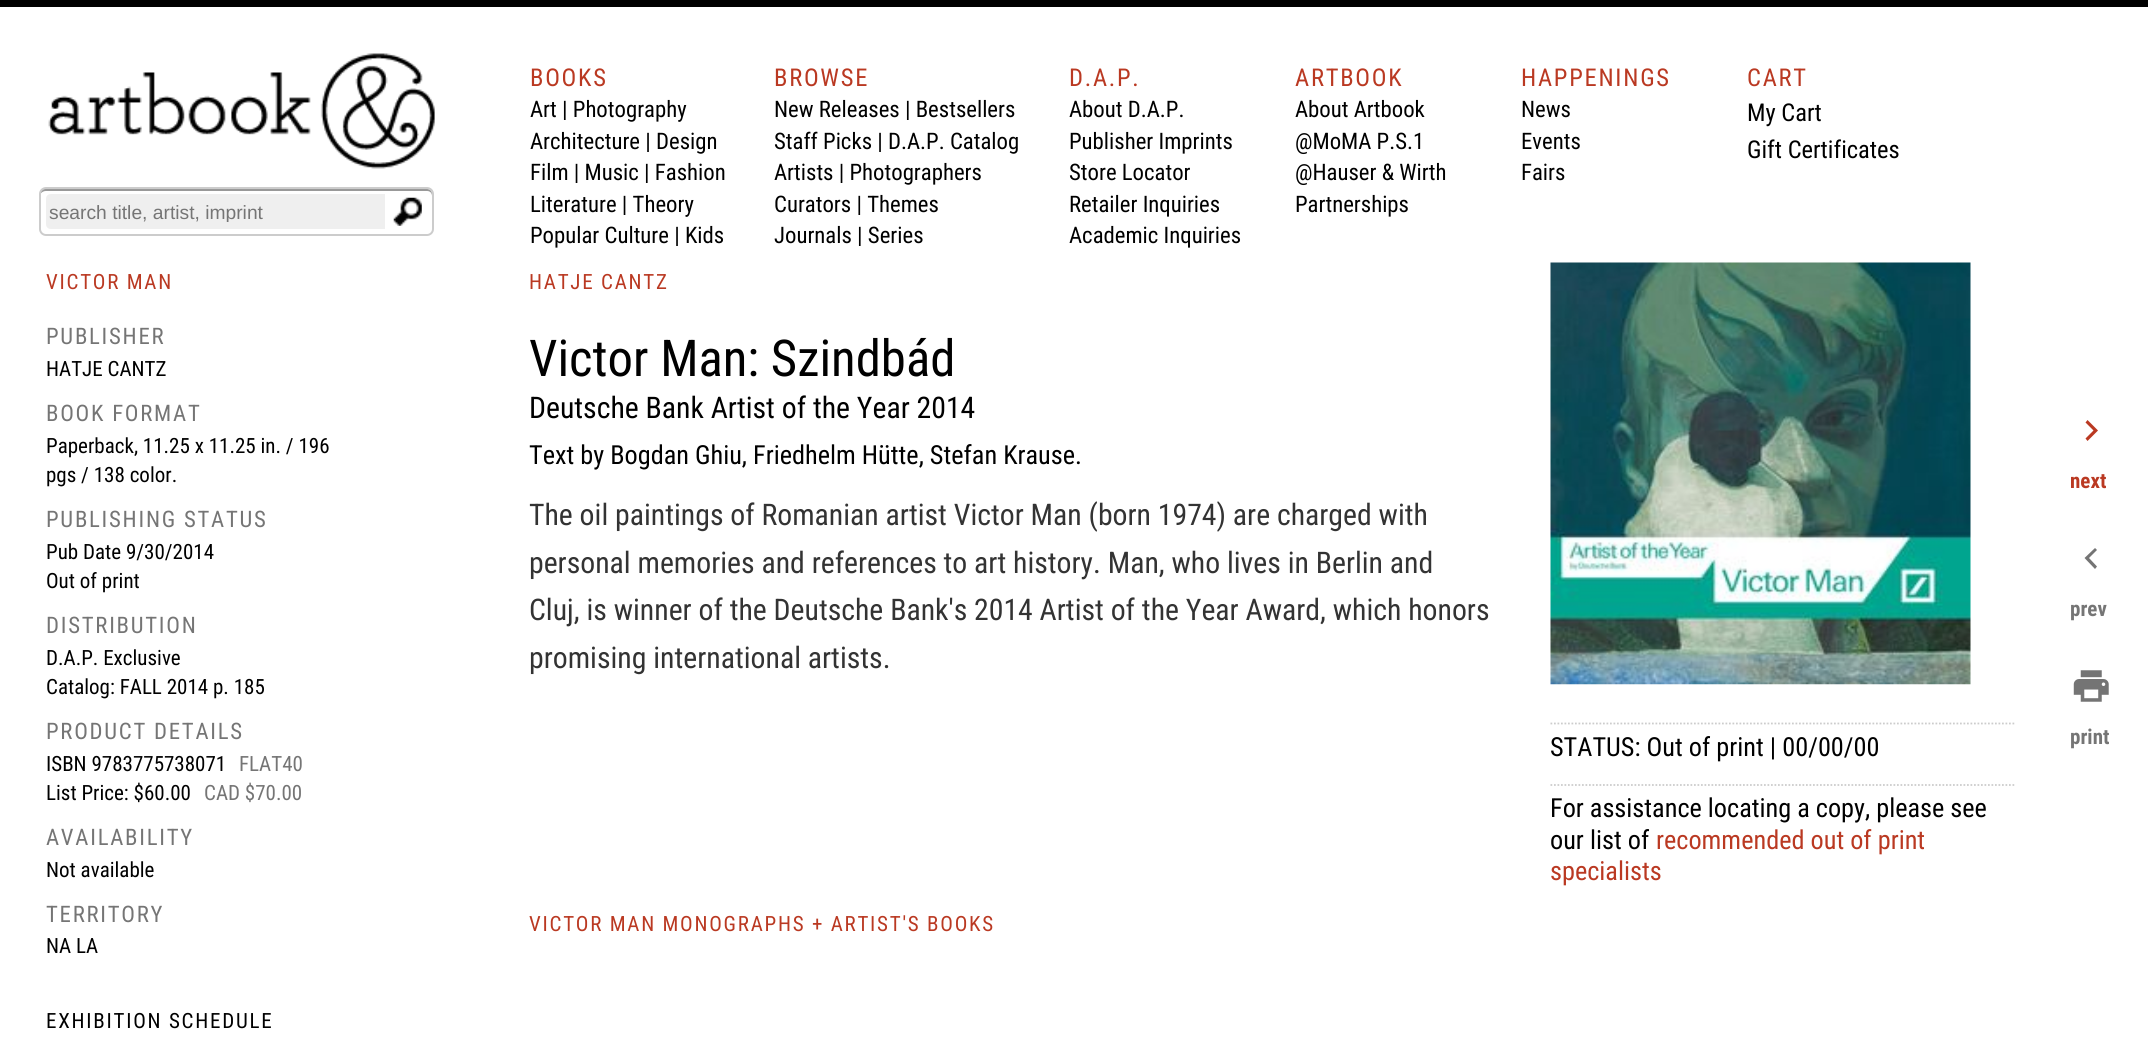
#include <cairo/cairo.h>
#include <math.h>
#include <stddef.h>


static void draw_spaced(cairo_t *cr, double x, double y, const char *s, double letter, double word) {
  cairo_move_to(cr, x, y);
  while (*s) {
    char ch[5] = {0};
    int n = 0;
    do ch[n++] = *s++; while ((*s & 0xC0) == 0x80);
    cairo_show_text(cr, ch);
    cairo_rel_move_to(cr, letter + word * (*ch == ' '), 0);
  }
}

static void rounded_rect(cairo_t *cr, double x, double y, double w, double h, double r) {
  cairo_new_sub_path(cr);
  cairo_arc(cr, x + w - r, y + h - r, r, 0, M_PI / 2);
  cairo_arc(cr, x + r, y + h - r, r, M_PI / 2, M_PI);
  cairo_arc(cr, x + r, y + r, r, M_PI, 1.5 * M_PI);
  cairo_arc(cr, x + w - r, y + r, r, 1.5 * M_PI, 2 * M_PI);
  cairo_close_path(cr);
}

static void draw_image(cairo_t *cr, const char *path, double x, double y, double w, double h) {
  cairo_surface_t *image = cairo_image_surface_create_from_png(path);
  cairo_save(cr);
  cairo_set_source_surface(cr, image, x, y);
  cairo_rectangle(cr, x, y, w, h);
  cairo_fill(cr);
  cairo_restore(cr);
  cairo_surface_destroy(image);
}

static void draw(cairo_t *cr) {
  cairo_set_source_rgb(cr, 1, 1, 1);
  cairo_paint(cr);
  cairo_set_source_rgb(cr, 0, 0, 0);
  cairo_rectangle(cr, 0, 0, 2148, 7);
  cairo_fill(cr);
  draw_image(cr, "images/1.png", 48, 53, 387, 116);
  cairo_set_source_rgb(cr, 153 / 255.0, 153 / 255.0, 153 / 255.0);
  cairo_new_path(cr);
  cairo_move_to(cr, 46, 191);
  cairo_line_to(cr, 427, 191);
  cairo_curve_to(cr, 430, 191, 432, 193, 432, 196);
  cairo_line_to(cr, 432, 194);
  cairo_curve_to(cr, 432, 191, 430, 189, 427, 189);
  cairo_line_to(cr, 45, 189);
  cairo_curve_to(cr, 42, 189, 40, 191, 40, 194);
  cairo_line_to(cr, 40, 196);
  cairo_curve_to(cr, 40, 193, 43, 191, 46, 191);
  cairo_close_path(cr);
  cairo_fill(cr);
  rounded_rect(cr, 40, 188, 393, 47, 6);
  cairo_set_source_rgb(cr, 204 / 255.0, 204 / 255.0, 204 / 255.0);
  cairo_stroke(cr);
  cairo_set_source_rgb(cr, 239 / 255.0, 239 / 255.0, 239 / 255.0);
  cairo_new_path(cr);
  cairo_move_to(cr, 51, 194);
  cairo_line_to(cr, 385, 194);
  cairo_line_to(cr, 385, 229);
  cairo_line_to(cr, 51, 229);
  cairo_curve_to(cr, 48, 229, 46, 227, 46, 224);
  cairo_line_to(cr, 46, 199);
  cairo_curve_to(cr, 46, 196, 48, 194, 51, 194);
  cairo_close_path(cr);
  cairo_fill(cr);
  draw_image(cr, "images/2.png", 393, 197, 29, 29);
  draw_image(cr, "images/3.png", 1550, 262, 421, 423);
  cairo_new_path(cr);
  cairo_move_to(cr, 1550.5, 723.5);
  cairo_line_to(cr, 2016, 723.5);
  cairo_set_source_rgb(cr, 204 / 255.0, 204 / 255.0, 204 / 255.0);
  cairo_set_line_width(cr, 1.8);
  cairo_set_dash(cr, (double[]){1.75, 1.75}, 2, 0);
  cairo_stroke(cr);
  cairo_new_path(cr);
  cairo_move_to(cr, 1550.5, 785);
  cairo_line_to(cr, 2016, 785);
  cairo_stroke(cr);
  cairo_set_source_rgb(cr, 186 / 255.0, 57 / 255.0, 34 / 255.0);
  cairo_new_path(cr);
  cairo_move_to(cr, 2087.5, 420);
  cairo_line_to(cr, 2098, 430.5);
  cairo_line_to(cr, 2087.5, 441);
  cairo_line_to(cr, 2085.5, 438.5);
  cairo_line_to(cr, 2093.5, 430.5);
  cairo_line_to(cr, 2085.5, 422.5);
  cairo_close_path(cr);
  cairo_fill(cr);
  cairo_set_source_rgb(cr, 116 / 255.0, 116 / 255.0, 116 / 255.0);
  cairo_new_path(cr);
  cairo_move_to(cr, 2097, 550);
  cairo_line_to(cr, 2089, 558);
  cairo_line_to(cr, 2097, 566.5);
  cairo_line_to(cr, 2095, 569);
  cairo_line_to(cr, 2084.5, 558);
  cairo_line_to(cr, 2095, 548);
  cairo_close_path(cr);
  cairo_fill(cr);
  draw_image(cr, "images/4.png", 2073, 670, 36, 32);
  cairo_save(cr);
  cairo_rectangle(cr, 49, 201, 333, 21);
  cairo_clip(cr);
  cairo_select_font_face(cr, "Liberation Sans", CAIRO_FONT_SLANT_NORMAL, CAIRO_FONT_WEIGHT_NORMAL);
  cairo_set_font_size(cr, 19.25);
  cairo_set_source_rgb(cr, 117 / 255.0, 117 / 255.0, 117 / 255.0);
  cairo_move_to(cr, 49, 219);
  cairo_show_text(cr, "search title, artist, imprint");
  cairo_restore(cr);
  cairo_select_font_face(cr, "Roboto Condensed", CAIRO_FONT_SLANT_NORMAL, CAIRO_FONT_WEIGHT_NORMAL);
  cairo_set_font_size(cr, 24.5);
  cairo_set_source_rgb(cr, 186 / 255.0, 57 / 255.0, 34 / 255.0);
  draw_spaced(cr, 530, 86, "BOOKS", 1.75, 0);
  cairo_set_font_size(cr, 22.75);
  cairo_set_source_rgb(cr, 0, 0, 0);
  cairo_move_to(cr, 530, 117);
  cairo_show_text(cr, "Art | Photography");
  cairo_move_to(cr, 530, 149);
  cairo_show_text(cr, "Architecture | Design");
  cairo_move_to(cr, 530, 180);
  cairo_show_text(cr, "Film | Music | Fashion");
  cairo_move_to(cr, 530, 212);
  cairo_show_text(cr, "Literature | Theory");
  cairo_move_to(cr, 530, 243);
  cairo_show_text(cr, "Popular Culture | Kids");
  cairo_set_font_size(cr, 24.5);
  cairo_set_source_rgb(cr, 186 / 255.0, 57 / 255.0, 34 / 255.0);
  draw_spaced(cr, 774, 86, "BROWSE", 1.75, 0);
  cairo_set_font_size(cr, 22.75);
  cairo_set_source_rgb(cr, 0, 0, 0);
  cairo_move_to(cr, 774, 117);
  cairo_show_text(cr, "New Releases | Bestsellers");
  cairo_move_to(cr, 774, 149);
  cairo_show_text(cr, "Staff Picks | D.A.P. Catalog");
  cairo_move_to(cr, 774, 180);
  cairo_show_text(cr, "Artists | Photographers");
  cairo_move_to(cr, 774, 212);
  cairo_show_text(cr, "Curators | Themes");
  cairo_move_to(cr, 774, 243);
  cairo_show_text(cr, "Journals | Series");
  cairo_set_font_size(cr, 24.5);
  cairo_set_source_rgb(cr, 186 / 255.0, 57 / 255.0, 34 / 255.0);
  draw_spaced(cr, 1069, 86, "D.A.P.", 1.75, 0);
  cairo_set_font_size(cr, 22.75);
  cairo_set_source_rgb(cr, 0, 0, 0);
  cairo_move_to(cr, 1069, 117);
  cairo_show_text(cr, "About D.A.P.");
  cairo_move_to(cr, 1069, 149);
  cairo_show_text(cr, "Publisher Imprints");
  cairo_move_to(cr, 1069, 180);
  cairo_show_text(cr, "Store Locator");
  cairo_move_to(cr, 1069, 212);
  cairo_show_text(cr, "Retailer Inquiries");
  cairo_move_to(cr, 1069, 243);
  cairo_show_text(cr, "Academic Inquiries");
  cairo_set_font_size(cr, 24.5);
  cairo_set_source_rgb(cr, 186 / 255.0, 57 / 255.0, 34 / 255.0);
  draw_spaced(cr, 1295, 86, "ARTBOOK", 1.75, 0);
  cairo_set_font_size(cr, 22.75);
  cairo_set_source_rgb(cr, 0, 0, 0);
  cairo_move_to(cr, 1295, 117);
  cairo_show_text(cr, "About Artbook");
  cairo_move_to(cr, 1295, 149);
  cairo_show_text(cr, "@MoMA P.S.1");
  cairo_move_to(cr, 1295, 180);
  cairo_show_text(cr, "@Hauser & Wirth");
  cairo_move_to(cr, 1295, 212);
  cairo_show_text(cr, "Partnerships");
  cairo_set_font_size(cr, 24.5);
  cairo_set_source_rgb(cr, 186 / 255.0, 57 / 255.0, 34 / 255.0);
  draw_spaced(cr, 1521, 86, "HAPPENINGS", 1.75, 0);
  cairo_set_font_size(cr, 22.75);
  cairo_set_source_rgb(cr, 0, 0, 0);
  cairo_move_to(cr, 1521, 117);
  cairo_show_text(cr, "News");
  cairo_move_to(cr, 1521, 149);
  cairo_show_text(cr, "Events");
  cairo_move_to(cr, 1521, 180);
  cairo_show_text(cr, "Fairs");
  cairo_set_font_size(cr, 24.5);
  cairo_set_source_rgb(cr, 186 / 255.0, 57 / 255.0, 34 / 255.0);
  draw_spaced(cr, 1747, 86, "CART", 1.75, 0);
  cairo_set_source_rgb(cr, 0, 0, 0);
  cairo_move_to(cr, 1747, 121);
  cairo_show_text(cr, "My Cart");
  cairo_move_to(cr, 1747, 158);
  cairo_show_text(cr, "Gift Certificates");
  cairo_set_font_size(cr, 21);
  cairo_set_source_rgb(cr, 186 / 255.0, 57 / 255.0, 34 / 255.0);
  draw_spaced(cr, 46, 289, "VICTOR MAN", 1.75, 0);
  cairo_set_font_size(cr, 22.75);
  cairo_set_source_rgb(cr, 117 / 255.0, 117 / 255.0, 117 / 255.0);
  draw_spaced(cr, 46, 344, "PUBLISHER", 1.75, 0);
  cairo_set_font_size(cr, 21);
  cairo_set_source_rgb(cr, 0, 0, 0);
  cairo_move_to(cr, 46, 376);
  cairo_show_text(cr, "HATJE CANTZ");
  cairo_set_font_size(cr, 22.75);
  cairo_set_source_rgb(cr, 117 / 255.0, 117 / 255.0, 117 / 255.0);
  draw_spaced(cr, 46, 421, "BOOK FORMAT", 1.75, 0);
  cairo_set_font_size(cr, 21);
  cairo_set_source_rgb(cr, 0, 0, 0);
  cairo_move_to(cr, 46, 453);
  cairo_show_text(cr, "Paperback, 11.25 x 11.25 in. / 196");
  cairo_move_to(cr, 46, 482);
  cairo_show_text(cr, "pgs / 138 color.");
  cairo_set_font_size(cr, 22.75);
  cairo_set_source_rgb(cr, 117 / 255.0, 117 / 255.0, 117 / 255.0);
  draw_spaced(cr, 46, 527, "PUBLISHING STATUS", 1.75, 0);
  cairo_set_font_size(cr, 21);
  cairo_set_source_rgb(cr, 0, 0, 0);
  cairo_move_to(cr, 46, 559);
  cairo_show_text(cr, "Pub Date 9/30/2014");
  cairo_move_to(cr, 46, 588);
  cairo_show_text(cr, "Out of print");
  cairo_set_font_size(cr, 22.75);
  cairo_set_source_rgb(cr, 117 / 255.0, 117 / 255.0, 117 / 255.0);
  draw_spaced(cr, 46, 633, "DISTRIBUTION", 1.75, 0);
  cairo_set_font_size(cr, 21);
  cairo_set_source_rgb(cr, 0, 0, 0);
  cairo_move_to(cr, 46, 665);
  cairo_show_text(cr, "D.A.P. Exclusive");
  cairo_move_to(cr, 46, 694);
  cairo_show_text(cr, "Catalog: FALL 2014 p. 185");
  cairo_set_font_size(cr, 22.75);
  cairo_set_source_rgb(cr, 117 / 255.0, 117 / 255.0, 117 / 255.0);
  draw_spaced(cr, 46, 739, "PRODUCT DETAILS", 1.75, 0);
  cairo_set_font_size(cr, 21);
  cairo_set_source_rgb(cr, 0, 0, 0);
  cairo_move_to(cr, 46, 771);
  cairo_show_text(cr, "ISBN 9783775738071");
  cairo_set_source_rgb(cr, 117 / 255.0, 117 / 255.0, 117 / 255.0);
  cairo_move_to(cr, 239, 771);
  cairo_show_text(cr, "FLAT40");
  cairo_set_source_rgb(cr, 0, 0, 0);
  cairo_move_to(cr, 46, 800);
  cairo_show_text(cr, "List Price: $60.00");
  cairo_set_source_rgb(cr, 117 / 255.0, 117 / 255.0, 117 / 255.0);
  cairo_move_to(cr, 204, 800);
  cairo_show_text(cr, "CAD $70.00");
  cairo_set_font_size(cr, 22.75);
  draw_spaced(cr, 46, 845, "AVAILABILITY", 1.75, 0);
  cairo_set_font_size(cr, 21);
  cairo_set_source_rgb(cr, 0, 0, 0);
  cairo_move_to(cr, 46, 877);
  cairo_show_text(cr, "Not available");
  cairo_set_font_size(cr, 22.75);
  cairo_set_source_rgb(cr, 117 / 255.0, 117 / 255.0, 117 / 255.0);
  draw_spaced(cr, 46, 922, "TERRITORY", 1.75, 0);
  cairo_set_font_size(cr, 21);
  cairo_set_source_rgb(cr, 0, 0, 0);
  cairo_move_to(cr, 46, 953);
  cairo_show_text(cr, "NA LA");
  draw_spaced(cr, 46, 1028, "EXHIBITION SCHEDULE", 1.75, 0);
  cairo_set_source_rgb(cr, 186 / 255.0, 57 / 255.0, 34 / 255.0);
  draw_spaced(cr, 529, 289, "HATJE CANTZ", 1.75, 0);
  cairo_set_font_size(cr, 50.75);
  cairo_set_source_rgb(cr, 0, 0, 0);
  cairo_move_to(cr, 529, 376);
  cairo_show_text(cr, "Victor Man: Szindbád");
  cairo_set_font_size(cr, 29.75);
  cairo_move_to(cr, 529, 418);
  cairo_show_text(cr, "Deutsche Bank Artist of the Year 2014");
  cairo_set_font_size(cr, 26.25);
  cairo_move_to(cr, 529, 464);
  cairo_show_text(cr, "Text by Bogdan Ghiu, Friedhelm Hütte, Stefan Krause.");
  cairo_set_font_size(cr, 29.75);
  cairo_set_source_rgb(cr, 51 / 255.0, 51 / 255.0, 51 / 255.0);
  cairo_move_to(cr, 529, 525);
  cairo_show_text(cr, "The oil paintings of Romanian artist Victor Man (born 1974) are charged with");
  cairo_move_to(cr, 529, 573);
  cairo_show_text(cr, "personal memories and references to art history. Man, who lives in Berlin and");
  cairo_move_to(cr, 529, 620);
  cairo_show_text(cr, "Cluj, is winner of the Deutsche Bank's 2014 Artist of the Year Award, which honors");
  cairo_move_to(cr, 529, 668);
  cairo_show_text(cr, "promising international artists.");
  cairo_set_font_size(cr, 26.25);
  cairo_set_source_rgb(cr, 0, 0, 0);
  cairo_move_to(cr, 1550, 756);
  cairo_show_text(cr, "STATUS: Out of print | 00/00/00");
  cairo_move_to(cr, 1550, 817);
  cairo_show_text(cr, "For assistance locating a copy, please see");
  cairo_move_to(cr, 1550, 849);
  cairo_show_text(cr, "our list of");
  cairo_set_source_rgb(cr, 186 / 255.0, 57 / 255.0, 34 / 255.0);
  cairo_move_to(cr, 1656, 849);
  cairo_show_text(cr, "recommended out of print");
  cairo_move_to(cr, 1550, 880);
  cairo_show_text(cr, "specialists");
  cairo_set_font_size(cr, 21);
  draw_spaced(cr, 529, 931, "VICTOR MAN MONOGRAPHS + ARTIST'S BOOKS", 1.75, 0);
  cairo_select_font_face(cr, "Roboto Condensed", CAIRO_FONT_SLANT_NORMAL, CAIRO_FONT_WEIGHT_BOLD);
  cairo_move_to(cr, 2070, 488);
  cairo_show_text(cr, "next");
  cairo_set_source_rgb(cr, 117 / 255.0, 117 / 255.0, 117 / 255.0);
  cairo_move_to(cr, 2070, 616);
  cairo_show_text(cr, "prev");
  cairo_move_to(cr, 2070, 744);
  cairo_show_text(cr, "print");
}

int main(void) {
  cairo_surface_t *surface = cairo_image_surface_create(CAIRO_FORMAT_RGB24, 2148, 1056);
  cairo_t *cr = cairo_create(surface);
  cairo_font_options_t *options = cairo_font_options_create();
  cairo_font_options_set_hint_metrics(options, CAIRO_HINT_METRICS_OFF);
  cairo_font_options_set_hint_style(options, CAIRO_HINT_STYLE_NONE);
  cairo_set_font_options(cr, options);
  cairo_set_miter_limit(cr, 4);
  draw(cr);
  cairo_surface_write_to_png(surface, "out.png");
  cairo_font_options_destroy(options);
  cairo_destroy(cr);
  cairo_surface_destroy(surface);
  return 0;
}
